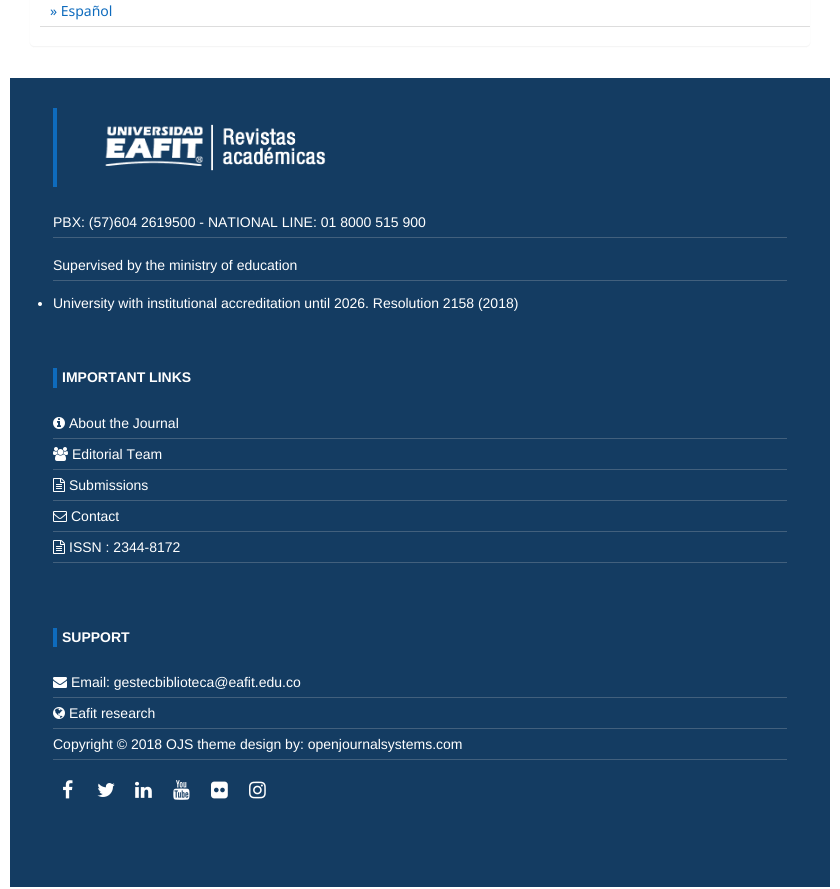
#include <cairo/cairo.h>
#include <math.h>
#include <stddef.h>


static void rounded_rect(cairo_t *cr, double x, double y, double w, double h, double r) {
  cairo_new_sub_path(cr);
  cairo_arc(cr, x + w - r, y + h - r, r, 0, M_PI / 2);
  cairo_arc(cr, x + r, y + h - r, r, M_PI / 2, M_PI);
  cairo_arc(cr, x + r, y + r, r, M_PI, 1.5 * M_PI);
  cairo_arc(cr, x + w - r, y + r, r, 1.5 * M_PI, 2 * M_PI);
  cairo_close_path(cr);
}

static void draw_shadow(cairo_t *cr, double x, double y, double w, double h, double r, double blur, double alpha) {
  cairo_push_group_with_content(cr, CAIRO_CONTENT_ALPHA);
  cairo_set_operator(cr, CAIRO_OPERATOR_SOURCE);
  for (int i = 15; i >= -15 && fmin(w, h) + blur * i / 3 > 0; i -= 2) {
    double e = blur * i / 6;
    cairo_set_source_rgba(cr, 0, 0, 0, alpha * erfc((i - 1) / 8.5) / 2);
    rounded_rect(cr, x - e, y - e, w + 2 * e, h + 2 * e, fmax(0, fmin(r + e + blur * .6, fmin(w, h) / 2 + e)));
    cairo_fill(cr);
  }
  cairo_pattern_t *soft = cairo_pop_group(cr);
  cairo_mask(cr, soft);
  cairo_pattern_destroy(soft);
}

static void draw_image(cairo_t *cr, const char *path, double x, double y, double w, double h) {
  cairo_surface_t *image = cairo_image_surface_create_from_png(path);
  cairo_save(cr);
  cairo_set_source_surface(cr, image, x, y);
  cairo_rectangle(cr, x, y, w, h);
  cairo_fill(cr);
  cairo_restore(cr);
  cairo_surface_destroy(image);
}

static void draw(cairo_t *cr) {
  cairo_set_source_rgb(cr, 1, 1, 1);
  cairo_paint(cr);
  cairo_set_source_rgb(cr, 0, 0, 0);
  draw_shadow(cr, 30, -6, 780, 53, 4, 0.5, 0.05);
  cairo_set_source_rgb(cr, 1, 1, 1);
  rounded_rect(cr, 30, -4, 780, 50, 4);
  cairo_fill(cr);
  cairo_set_source_rgb(cr, 221 / 255.0, 221 / 255.0, 221 / 255.0);
  cairo_rectangle(cr, 40, 26, 770, 1);
  cairo_fill(cr);
  cairo_set_source_rgb(cr, 20 / 255.0, 60 / 255.0, 98 / 255.0);
  cairo_rectangle(cr, 10, 78, 820, 809);
  cairo_fill(cr);
  cairo_set_source_rgb(cr, 14 / 255.0, 107 / 255.0, 189 / 255.0);
  cairo_rectangle(cr, 53, 108, 4, 79);
  cairo_fill(cr);
  draw_image(cr, "images/1.png", 105, 124, 221, 47);
  cairo_set_source_rgb(cr, 66 / 255.0, 96 / 255.0, 125 / 255.0);
  cairo_rectangle(cr, 53, 237, 734, 1);
  cairo_fill(cr);
  cairo_rectangle(cr, 53, 280, 734, 1);
  cairo_fill(cr);
  cairo_set_source_rgb(cr, 1, 1, 1);
  cairo_arc(cr, 40, 304, 2, 0, 2 * M_PI);
  cairo_fill(cr);
  cairo_set_source_rgb(cr, 14 / 255.0, 107 / 255.0, 189 / 255.0);
  cairo_rectangle(cr, 53, 368, 4, 20);
  cairo_fill(cr);
  cairo_set_source_rgb(cr, 66 / 255.0, 96 / 255.0, 125 / 255.0);
  cairo_rectangle(cr, 53, 438, 734, 1);
  cairo_fill(cr);
  draw_image(cr, "images/2.png", 53, 417, 12, 12);
  cairo_rectangle(cr, 53, 469, 734, 1);
  cairo_fill(cr);
  draw_image(cr, "images/3.png", 53, 447, 15, 14);
  cairo_rectangle(cr, 53, 500, 734, 1);
  cairo_fill(cr);
  draw_image(cr, "images/4.png", 53, 478, 12, 14);
  cairo_rectangle(cr, 53, 531, 734, 1);
  cairo_fill(cr);
  draw_image(cr, "images/5.png", 53, 511, 14, 11);
  cairo_rectangle(cr, 53, 562, 734, 1);
  cairo_fill(cr);
  draw_image(cr, "images/4.png", 53, 540, 12, 14);
  cairo_set_source_rgb(cr, 14 / 255.0, 107 / 255.0, 189 / 255.0);
  cairo_rectangle(cr, 53, 628, 4, 19);
  cairo_fill(cr);
  cairo_set_source_rgb(cr, 66 / 255.0, 96 / 255.0, 125 / 255.0);
  cairo_rectangle(cr, 53, 697, 734, 1);
  cairo_fill(cr);
  draw_image(cr, "images/6.png", 53, 677, 14, 11);
  cairo_rectangle(cr, 53, 728, 734, 1);
  cairo_fill(cr);
  draw_image(cr, "images/7.png", 53, 707, 12, 12);
  cairo_rectangle(cr, 53, 759, 734, 1);
  cairo_fill(cr);
  draw_image(cr, "images/8.png", 63, 780, 10, 19);
  draw_image(cr, "images/9.png", 97, 783, 18, 14);
  draw_image(cr, "images/10.png", 135, 781, 17, 17);
  draw_image(cr, "images/11.png", 173, 780, 17, 20);
  draw_image(cr, "images/12.png", 211, 781, 17, 18);
  draw_image(cr, "images/13.png", 249, 781, 17, 18);
  cairo_select_font_face(cr, "Noto Sans", CAIRO_FONT_SLANT_NORMAL, CAIRO_FONT_WEIGHT_NORMAL);
  cairo_set_font_size(cr, 14);
  cairo_set_source_rgb(cr, 14 / 255.0, 107 / 255.0, 189 / 255.0);
  cairo_move_to(cr, 50, 16);
  cairo_show_text(cr, "» Español");
  cairo_select_font_face(cr, "Liberation Sans", CAIRO_FONT_SLANT_NORMAL, CAIRO_FONT_WEIGHT_NORMAL);
  cairo_set_source_rgb(cr, 1, 1, 1);
  cairo_move_to(cr, 53, 227);
  cairo_show_text(cr, "PBX: (57)604 2619500 - NATIONAL LINE: 01 8000 515 900");
  cairo_move_to(cr, 53, 270);
  cairo_show_text(cr, "Supervised by the ministry of education");
  cairo_move_to(cr, 53, 308);
  cairo_show_text(cr, "University with institutional accreditation until 2026. Resolution 2158 (2018)");
  cairo_select_font_face(cr, "Liberation Sans", CAIRO_FONT_SLANT_NORMAL, CAIRO_FONT_WEIGHT_BOLD);
  cairo_move_to(cr, 62, 382);
  cairo_show_text(cr, "IMPORTANT LINKS");
  cairo_select_font_face(cr, "Liberation Sans", CAIRO_FONT_SLANT_NORMAL, CAIRO_FONT_WEIGHT_NORMAL);
  cairo_move_to(cr, 69, 428);
  cairo_show_text(cr, "About the Journal");
  cairo_move_to(cr, 72, 459);
  cairo_show_text(cr, "Editorial Team");
  cairo_move_to(cr, 69, 490);
  cairo_show_text(cr, "Submissions");
  cairo_move_to(cr, 71, 521);
  cairo_show_text(cr, "Contact");
  cairo_move_to(cr, 69, 552);
  cairo_show_text(cr, "ISSN : 2344-8172");
  cairo_select_font_face(cr, "Liberation Sans", CAIRO_FONT_SLANT_NORMAL, CAIRO_FONT_WEIGHT_BOLD);
  cairo_move_to(cr, 62, 642);
  cairo_show_text(cr, "SUPPORT");
  cairo_select_font_face(cr, "Liberation Sans", CAIRO_FONT_SLANT_NORMAL, CAIRO_FONT_WEIGHT_NORMAL);
  cairo_move_to(cr, 71, 687);
  cairo_show_text(cr, "Email: gestecbiblioteca@eafit.edu.co");
  cairo_move_to(cr, 69, 718);
  cairo_show_text(cr, "Eafit research");
  cairo_move_to(cr, 53, 749);
  cairo_show_text(cr, "Copyright © 2018 OJS theme design by: openjournalsystems.com");
}

int main(void) {
  cairo_surface_t *surface = cairo_image_surface_create(CAIRO_FORMAT_RGB24, 840, 889);
  cairo_t *cr = cairo_create(surface);
  cairo_font_options_t *options = cairo_font_options_create();
  cairo_font_options_set_hint_metrics(options, CAIRO_HINT_METRICS_OFF);
  cairo_font_options_set_hint_style(options, CAIRO_HINT_STYLE_NONE);
  cairo_set_font_options(cr, options);
  cairo_set_miter_limit(cr, 4);
  draw(cr);
  cairo_surface_write_to_png(surface, "out.png");
  cairo_font_options_destroy(options);
  cairo_destroy(cr);
  cairo_surface_destroy(surface);
  return 0;
}
